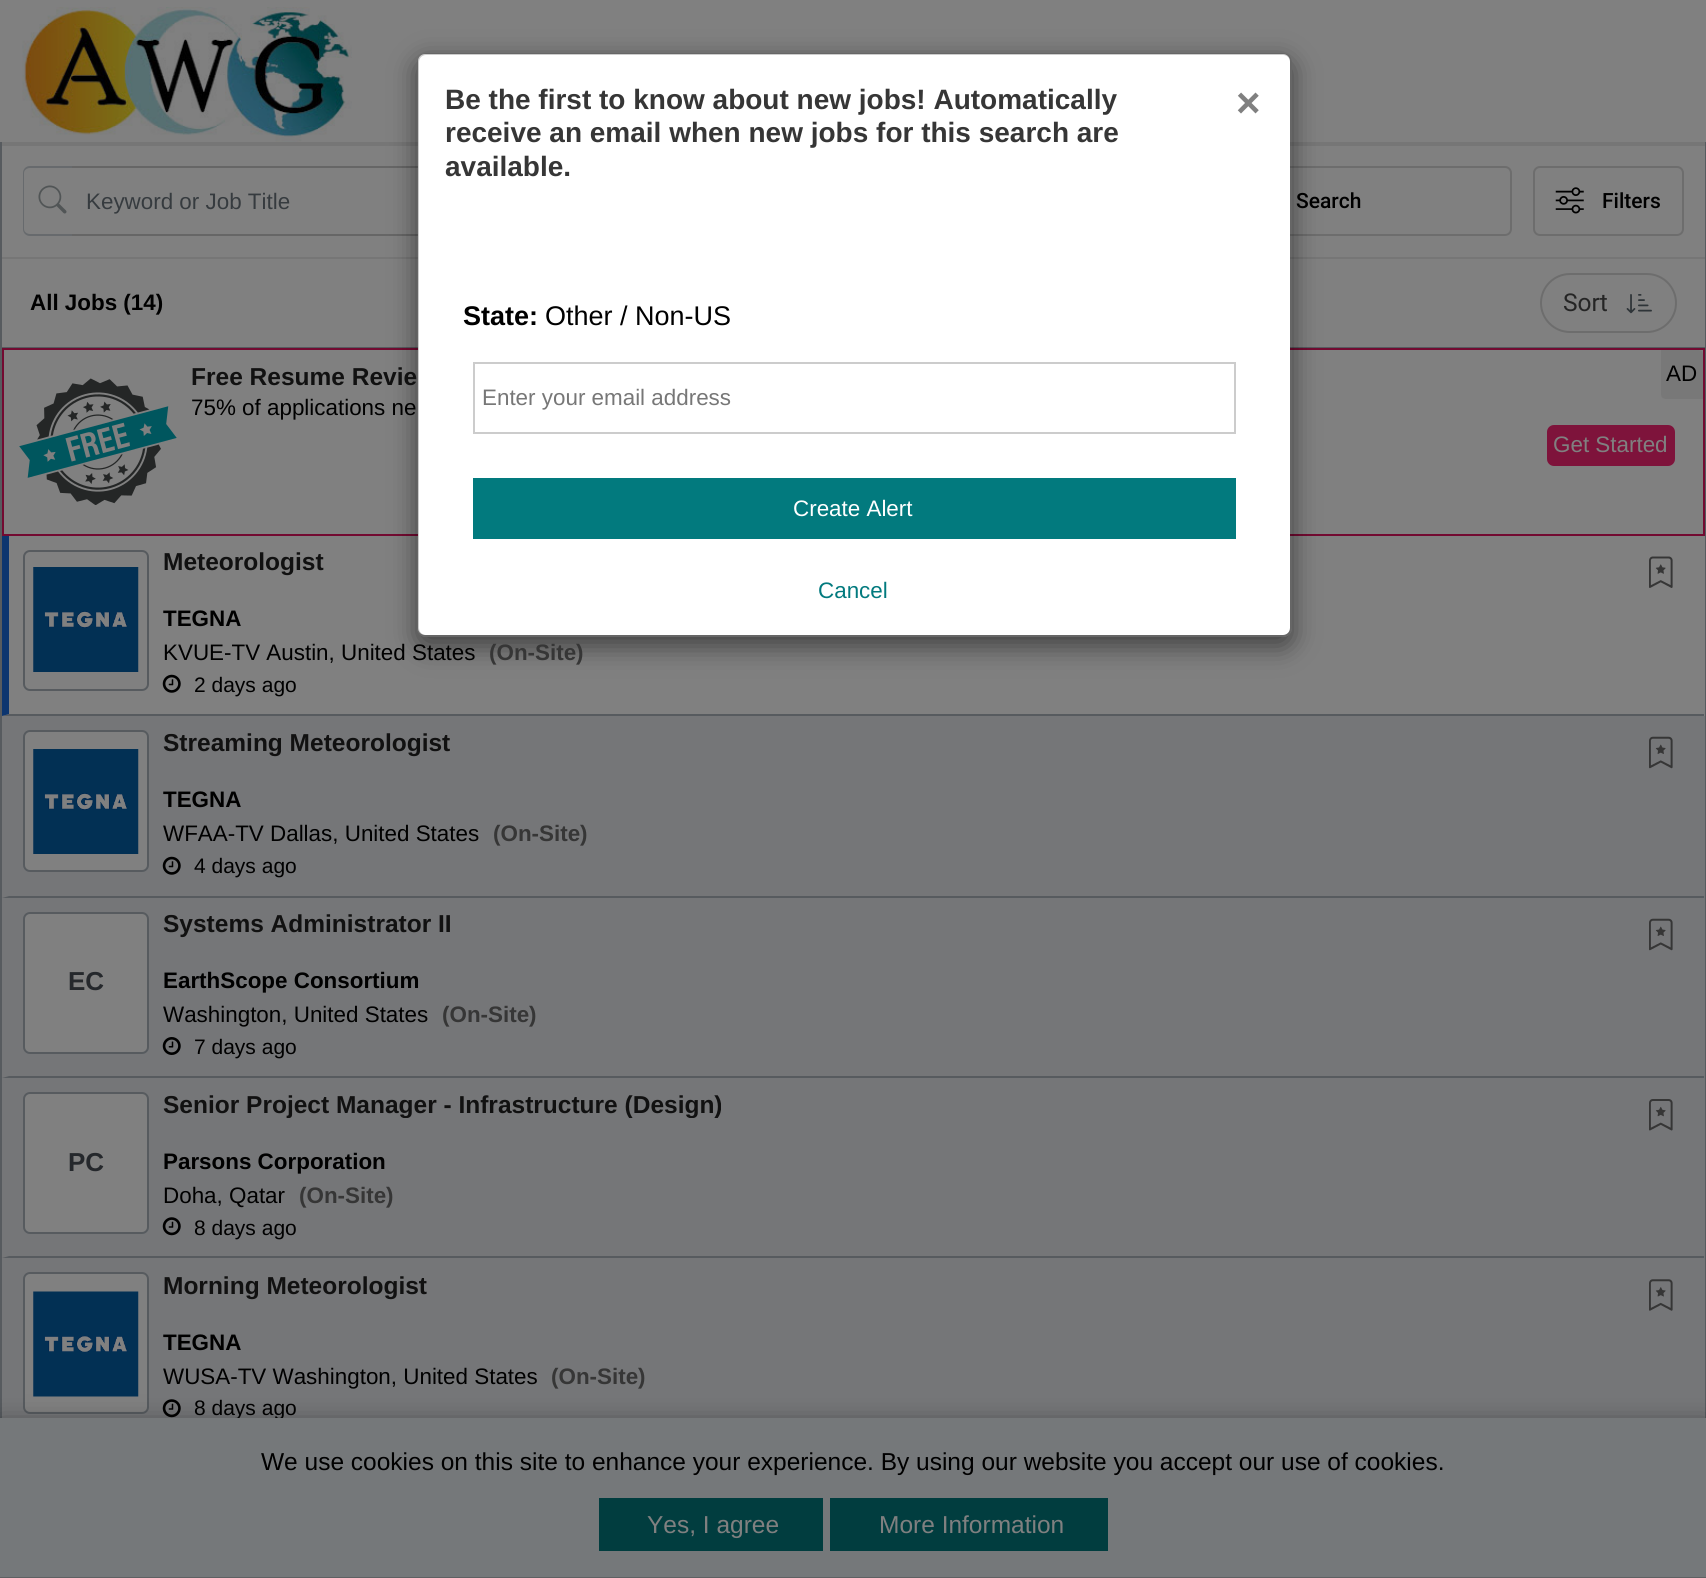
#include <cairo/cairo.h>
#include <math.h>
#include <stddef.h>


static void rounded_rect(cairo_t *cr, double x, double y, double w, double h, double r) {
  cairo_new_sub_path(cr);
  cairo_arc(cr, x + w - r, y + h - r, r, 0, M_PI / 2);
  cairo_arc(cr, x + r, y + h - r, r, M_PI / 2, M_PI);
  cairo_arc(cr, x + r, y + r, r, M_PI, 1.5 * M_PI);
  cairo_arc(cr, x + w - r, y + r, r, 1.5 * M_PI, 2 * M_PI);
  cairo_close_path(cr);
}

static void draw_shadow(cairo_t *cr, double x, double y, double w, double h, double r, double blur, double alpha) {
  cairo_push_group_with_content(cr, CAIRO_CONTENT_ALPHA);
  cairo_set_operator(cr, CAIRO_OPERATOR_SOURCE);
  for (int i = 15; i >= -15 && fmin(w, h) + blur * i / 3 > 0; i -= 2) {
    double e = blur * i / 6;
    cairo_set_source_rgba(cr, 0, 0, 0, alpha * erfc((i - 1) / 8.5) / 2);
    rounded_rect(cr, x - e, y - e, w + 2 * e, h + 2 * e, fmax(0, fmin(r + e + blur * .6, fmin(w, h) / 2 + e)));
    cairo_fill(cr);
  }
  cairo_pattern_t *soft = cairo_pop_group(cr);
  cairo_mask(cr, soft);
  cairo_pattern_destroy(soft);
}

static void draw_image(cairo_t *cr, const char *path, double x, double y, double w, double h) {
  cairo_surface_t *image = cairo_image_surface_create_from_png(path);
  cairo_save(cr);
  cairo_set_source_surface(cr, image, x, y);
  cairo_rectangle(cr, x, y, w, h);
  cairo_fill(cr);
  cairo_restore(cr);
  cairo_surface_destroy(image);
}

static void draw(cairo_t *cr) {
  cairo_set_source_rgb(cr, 128 / 255.0, 128 / 255.0, 128 / 255.0);
  cairo_paint(cr);
  draw_image(cr, "images/1.png", 22, 7, 330, 135);
  cairo_set_source_rgb(cr, 118 / 255.0, 118 / 255.0, 118 / 255.0);
  cairo_rectangle(cr, 0, 142, 1706, 2);
  cairo_fill(cr);
  cairo_rectangle(cr, 2, 144, 1703, 2);
  cairo_fill(cr);
  cairo_rectangle(cr, 2, 257, 1703, 2);
  cairo_fill(cr);
  cairo_set_source_rgb(cr, 103 / 255.0, 106 / 255.0, 109 / 255.0);
  cairo_set_fill_rule(cr, CAIRO_FILL_RULE_EVEN_ODD);
  cairo_new_path(cr);
  cairo_move_to(cr, 30, 166);
  cairo_line_to(cr, 74, 166);
  cairo_line_to(cr, 74, 236);
  cairo_line_to(cr, 30, 236);
  cairo_curve_to(cr, 26, 236, 23, 233, 23, 229);
  cairo_line_to(cr, 23, 173);
  cairo_curve_to(cr, 23, 169, 26, 166, 30, 166);
  cairo_close_path(cr);
  cairo_move_to(cr, 30, 168);
  cairo_line_to(cr, 74, 168);
  cairo_line_to(cr, 74, 234);
  cairo_line_to(cr, 30, 234);
  cairo_curve_to(cr, 27, 234, 24, 232, 24, 229);
  cairo_line_to(cr, 24, 173);
  cairo_curve_to(cr, 24, 170, 27, 168, 30, 168);
  cairo_close_path(cr);
  cairo_fill(cr);
  cairo_set_source_rgb(cr, 102 / 255.0, 102 / 255.0, 102 / 255.0);
  cairo_new_path(cr);
  cairo_move_to(cr, 72, 166);
  cairo_line_to(cr, 555, 166);
  cairo_curve_to(cr, 559, 166, 562, 169, 562, 173);
  cairo_line_to(cr, 562, 229);
  cairo_curve_to(cr, 562, 233, 559, 236, 555, 236);
  cairo_line_to(cr, 72, 236);
  cairo_close_path(cr);
  cairo_move_to(cr, 72, 168);
  cairo_line_to(cr, 555, 168);
  cairo_curve_to(cr, 558, 168, 560, 170, 560, 173);
  cairo_line_to(cr, 560, 229);
  cairo_curve_to(cr, 560, 232, 558, 234, 555, 234);
  cairo_line_to(cr, 72, 234);
  cairo_close_path(cr);
  cairo_fill(cr);
  rounded_rect(cr, 1146, 167, 365, 68, 6);
  cairo_set_source_rgb(cr, 109 / 255.0, 109 / 255.0, 109 / 255.0);
  cairo_stroke(cr);
  cairo_set_source_rgb(cr, 87 / 255.0, 91 / 255.0, 95 / 255.0);
  cairo_rectangle(cr, 2, 347, 1703, 1);
  cairo_fill(cr);
  cairo_rectangle(cr, 3, 349, 1701, 186);
  cairo_set_source_rgb(cr, 115 / 255.0, 10 / 255.0, 49 / 255.0);
  cairo_stroke(cr);
  cairo_save(cr);
  cairo_new_path(cr);
  cairo_move_to(cr, 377, 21);
  cairo_line_to(cr, 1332, 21);
  cairo_line_to(cr, 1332, 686);
  cairo_line_to(cr, 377, 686);
  cairo_close_path(cr);
  cairo_move_to(cr, 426, 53);
  cairo_line_to(cr, 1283, 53);
  cairo_curve_to(cr, 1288, 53, 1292, 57, 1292, 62);
  cairo_line_to(cr, 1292, 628);
  cairo_curve_to(cr, 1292, 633, 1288, 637, 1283, 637);
  cairo_line_to(cr, 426, 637);
  cairo_curve_to(cr, 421, 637, 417, 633, 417, 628);
  cairo_line_to(cr, 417, 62);
  cairo_curve_to(cr, 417, 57, 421, 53, 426, 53);
  cairo_close_path(cr);
  cairo_clip(cr);
  cairo_set_source_rgb(cr, 0, 0, 0);
  draw_shadow(cr, 417, 61, 875, 585, 9, 13, 0.5);
  cairo_restore(cr);
  cairo_set_source_rgb(cr, 1, 1, 1);
  rounded_rect(cr, 418, 54, 872, 581, 7);
  cairo_fill(cr);
  rounded_rect(cr, 418, 54, 873, 582, 8);
  cairo_set_source_rgba(cr, 0, 0, 0, 0.2);
  cairo_stroke(cr);
  cairo_rectangle(cr, 474, 363, 761, 70);
  cairo_set_source_rgb(cr, 204 / 255.0, 204 / 255.0, 204 / 255.0);
  cairo_stroke(cr);
  cairo_set_source_rgb(cr, 2 / 255.0, 122 / 255.0, 126 / 255.0);
  cairo_rectangle(cr, 473, 478, 763, 61);
  cairo_fill(cr);
  cairo_set_source_rgb(cr, 117 / 255.0, 118 / 255.0, 120 / 255.0);
  cairo_rectangle(cr, 2, 716, 1703, 702);
  cairo_fill(cr);
  cairo_set_source_rgb(cr, 87 / 255.0, 91 / 255.0, 95 / 255.0);
  cairo_rectangle(cr, 1705, 142, 1, 1276);
  cairo_fill(cr);
  cairo_rectangle(cr, 0, 142, 2, 1276);
  cairo_fill(cr);
  draw_image(cr, "images/2.png", 38, 185, 29, 29);
  rounded_rect(cr, 1534, 167, 149, 68, 6);
  cairo_set_source_rgb(cr, 109 / 255.0, 109 / 255.0, 109 / 255.0);
  cairo_stroke(cr);
  draw_image(cr, "images/3.png", 1555, 187, 29, 27);
  rounded_rect(cr, 1541, 274, 135, 58, 29);
  cairo_stroke(cr);
  draw_image(cr, "images/4.png", 1626, 294, 26, 20);
  draw_image(cr, "images/5.png", 19, 378, 158, 127);
  cairo_set_source_rgb(cr, 120 / 255.0, 120 / 255.0, 120 / 255.0);
  cairo_new_path(cr);
  cairo_move_to(cr, 1661, 350);
  cairo_line_to(cr, 1698, 350);
  cairo_curve_to(cr, 1701, 350, 1703, 352, 1703, 355);
  cairo_line_to(cr, 1703, 399);
  cairo_line_to(cr, 1666, 399);
  cairo_curve_to(cr, 1663, 399, 1661, 397, 1661, 394);
  cairo_close_path(cr);
  cairo_fill(cr);
  cairo_set_source_rgb(cr, 126 / 255.0, 19 / 255.0, 59 / 255.0);
  rounded_rect(cr, 1547, 425, 128, 41, 7);
  cairo_fill(cr);
  cairo_set_source_rgb(cr, 87 / 255.0, 91 / 255.0, 95 / 255.0);
  cairo_set_fill_rule(cr, CAIRO_FILL_RULE_WINDING);
  cairo_new_path(cr);
  cairo_move_to(cr, 1704, 716);
  cairo_line_to(cr, 2, 716);
  cairo_line_to(cr, 9, 714);
  cairo_line_to(cr, 1704, 714);
  cairo_close_path(cr);
  cairo_fill(cr);
  cairo_set_source_rgb(cr, 12 / 255.0, 53 / 255.0, 111 / 255.0);
  cairo_new_path(cr);
  cairo_move_to(cr, 2, 716);
  cairo_line_to(cr, 2, 536);
  cairo_line_to(cr, 9, 536);
  cairo_line_to(cr, 9, 714);
  cairo_close_path(cr);
  cairo_fill(cr);
  rounded_rect(cr, 24, 551, 124, 139, 6);
  cairo_set_source_rgb(cr, 87 / 255.0, 91 / 255.0, 95 / 255.0);
  cairo_stroke(cr);
  draw_image(cr, "images/6.png", 33, 567, 106, 105);
  draw_image(cr, "images/7.png", 1649, 556, 24, 32);
  draw_image(cr, "images/8.png", 162, 674, 19, 19);
  cairo_new_path(cr);
  cairo_move_to(cr, 1704, 898);
  cairo_line_to(cr, 2, 898);
  cairo_line_to(cr, 9, 896);
  cairo_line_to(cr, 1704, 896);
  cairo_close_path(cr);
  cairo_fill(cr);
  cairo_set_source_rgb(cr, 128 / 255.0, 128 / 255.0, 128 / 255.0);
  rounded_rect(cr, 24, 731, 124, 140, 6);
  cairo_fill_preserve(cr);
  cairo_set_source_rgb(cr, 87 / 255.0, 91 / 255.0, 95 / 255.0);
  cairo_stroke(cr);
  draw_image(cr, "images/9.png", 33, 749, 106, 105);
  draw_image(cr, "images/10.png", 1649, 736, 24, 33);
  draw_image(cr, "images/11.png", 162, 856, 19, 19);
  cairo_new_path(cr);
  cairo_move_to(cr, 1704, 1078);
  cairo_line_to(cr, 2, 1078);
  cairo_line_to(cr, 9, 1076);
  cairo_line_to(cr, 1704, 1076);
  cairo_close_path(cr);
  cairo_fill(cr);
  cairo_set_source_rgb(cr, 128 / 255.0, 128 / 255.0, 128 / 255.0);
  rounded_rect(cr, 24, 913, 124, 140, 6);
  cairo_fill_preserve(cr);
  cairo_set_source_rgb(cr, 87 / 255.0, 91 / 255.0, 95 / 255.0);
  cairo_stroke(cr);
  draw_image(cr, "images/10.png", 1649, 918, 24, 33);
  draw_image(cr, "images/12.png", 162, 1037, 19, 18);
  cairo_new_path(cr);
  cairo_move_to(cr, 1704, 1258);
  cairo_line_to(cr, 2, 1258);
  cairo_line_to(cr, 9, 1256);
  cairo_line_to(cr, 1704, 1256);
  cairo_close_path(cr);
  cairo_fill(cr);
  cairo_set_source_rgb(cr, 128 / 255.0, 128 / 255.0, 128 / 255.0);
  rounded_rect(cr, 24, 1093, 124, 140, 6);
  cairo_fill_preserve(cr);
  cairo_set_source_rgb(cr, 87 / 255.0, 91 / 255.0, 95 / 255.0);
  cairo_stroke(cr);
  draw_image(cr, "images/13.png", 1649, 1099, 24, 32);
  draw_image(cr, "images/14.png", 162, 1217, 19, 19);
  cairo_set_source_rgb(cr, 128 / 255.0, 128 / 255.0, 128 / 255.0);
  rounded_rect(cr, 24, 1273, 124, 140, 6);
  cairo_fill_preserve(cr);
  cairo_set_source_rgb(cr, 87 / 255.0, 91 / 255.0, 95 / 255.0);
  cairo_stroke(cr);
  draw_image(cr, "images/15.png", 33, 1291, 106, 106);
  draw_image(cr, "images/16.png", 1649, 1279, 24, 32);
  draw_image(cr, "images/14.png", 162, 1399, 19, 19);
  cairo_set_source_rgb(cr, 0, 0, 0);
  draw_shadow(cr, 0, 1426, 1706, 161, 0, 13, 0.5);
  cairo_set_source_rgb(cr, 94 / 255.0, 96 / 255.0, 98 / 255.0);
  cairo_rectangle(cr, 0, 1577, 1706, 1);
  cairo_fill(cr);
  cairo_select_font_face(cr, "Liberation Sans", CAIRO_FONT_SLANT_NORMAL, CAIRO_FONT_WEIGHT_BOLD);
  cairo_set_font_size(cr, 28);
  cairo_set_source_rgb(cr, 54 / 255.0, 54 / 255.0, 54 / 255.0);
  cairo_move_to(cr, 445, 109);
  cairo_show_text(cr, "Be the first to know about new jobs! Automatically");
  cairo_move_to(cr, 445, 142);
  cairo_show_text(cr, "receive an email when new jobs for this search are");
  cairo_move_to(cr, 445, 176);
  cairo_show_text(cr, "available.");
  cairo_set_font_size(cr, 42);
  cairo_set_source_rgb(cr, 128 / 255.0, 128 / 255.0, 128 / 255.0);
  cairo_move_to(cr, 1236, 117);
  cairo_show_text(cr, "×");
  cairo_set_font_size(cr, 27);
  cairo_set_source_rgb(cr, 0, 0, 0);
  cairo_move_to(cr, 463, 325);
  cairo_show_text(cr, "State:");
  cairo_select_font_face(cr, "Liberation Sans", CAIRO_FONT_SLANT_NORMAL, CAIRO_FONT_WEIGHT_NORMAL);
  cairo_move_to(cr, 545, 325);
  cairo_show_text(cr, "Other / Non-US");
  cairo_set_font_size(cr, 22.4);
  cairo_set_source_rgb(cr, 119 / 255.0, 119 / 255.0, 119 / 255.0);
  cairo_move_to(cr, 482, 405);
  cairo_show_text(cr, "Enter your email address");
  cairo_set_source_rgb(cr, 1, 1, 1);
  cairo_move_to(cr, 793, 516);
  cairo_show_text(cr, "Create Alert");
  cairo_set_source_rgb(cr, 2 / 255.0, 122 / 255.0, 126 / 255.0);
  cairo_move_to(cr, 818, 598);
  cairo_show_text(cr, "Cancel");
  cairo_set_source_rgb(cr, 54 / 255.0, 59 / 255.0, 63 / 255.0);
  cairo_move_to(cr, 86, 209);
  cairo_show_text(cr, "Keyword or Job Title");
  cairo_select_font_face(cr, "Roboto Medium", CAIRO_FONT_SLANT_NORMAL, CAIRO_FONT_WEIGHT_NORMAL);
  cairo_set_font_size(cr, 21);
  cairo_set_source_rgb(cr, 0, 0, 0);
  cairo_move_to(cr, 1296, 208);
  cairo_show_text(cr, "Search");
  cairo_move_to(cr, 1602, 208);
  cairo_show_text(cr, "Filters");
  cairo_select_font_face(cr, "Liberation Sans", CAIRO_FONT_SLANT_NORMAL, CAIRO_FONT_WEIGHT_BOLD);
  cairo_set_font_size(cr, 22.4);
  cairo_move_to(cr, 30, 310);
  cairo_show_text(cr, "All Jobs (14)");
  cairo_select_font_face(cr, "Roboto", CAIRO_FONT_SLANT_NORMAL, CAIRO_FONT_WEIGHT_NORMAL);
  cairo_set_font_size(cr, 24.5);
  cairo_set_source_rgb(cr, 37 / 255.0, 37 / 255.0, 37 / 255.0);
  cairo_move_to(cr, 1563, 311);
  cairo_show_text(cr, "Sort");
  cairo_select_font_face(cr, "Liberation Sans", CAIRO_FONT_SLANT_NORMAL, CAIRO_FONT_WEIGHT_BOLD);
  cairo_set_source_rgb(cr, 17 / 255.0, 17 / 255.0, 17 / 255.0);
  cairo_move_to(cr, 191, 385);
  cairo_show_text(cr, "Free Resume Revie");
  cairo_select_font_face(cr, "Liberation Sans", CAIRO_FONT_SLANT_NORMAL, CAIRO_FONT_WEIGHT_NORMAL);
  cairo_set_font_size(cr, 22.4);
  cairo_set_source_rgb(cr, 0, 0, 0);
  cairo_move_to(cr, 1666, 381);
  cairo_show_text(cr, "AD");
  cairo_move_to(cr, 191, 415);
  cairo_show_text(cr, "75% of applications ne");
  cairo_set_source_rgb(cr, 128 / 255.0, 128 / 255.0, 128 / 255.0);
  cairo_move_to(cr, 1553, 452);
  cairo_show_text(cr, "Get Started");
  cairo_select_font_face(cr, "Liberation Sans", CAIRO_FONT_SLANT_NORMAL, CAIRO_FONT_WEIGHT_BOLD);
  cairo_set_font_size(cr, 24.5);
  cairo_set_source_rgb(cr, 17 / 255.0, 17 / 255.0, 17 / 255.0);
  cairo_move_to(cr, 163, 570);
  cairo_show_text(cr, "Meteorologist");
  cairo_set_font_size(cr, 22.4);
  cairo_set_source_rgb(cr, 0, 0, 0);
  cairo_move_to(cr, 163, 626);
  cairo_show_text(cr, "TEGNA");
  cairo_select_font_face(cr, "Liberation Sans", CAIRO_FONT_SLANT_NORMAL, CAIRO_FONT_WEIGHT_NORMAL);
  cairo_move_to(cr, 163, 660);
  cairo_show_text(cr, "KVUE-TV Austin, United States");
  cairo_select_font_face(cr, "Liberation Sans", CAIRO_FONT_SLANT_NORMAL, CAIRO_FONT_WEIGHT_BOLD);
  cairo_set_source_rgb(cr, 54 / 255.0, 54 / 255.0, 54 / 255.0);
  cairo_move_to(cr, 489, 660);
  cairo_show_text(cr, "(On-Site)");
  cairo_select_font_face(cr, "Liberation Sans", CAIRO_FONT_SLANT_NORMAL, CAIRO_FONT_WEIGHT_NORMAL);
  cairo_set_font_size(cr, 21);
  cairo_set_source_rgb(cr, 0, 0, 0);
  cairo_move_to(cr, 194, 692);
  cairo_show_text(cr, "2 days ago");
  cairo_select_font_face(cr, "Liberation Sans", CAIRO_FONT_SLANT_NORMAL, CAIRO_FONT_WEIGHT_BOLD);
  cairo_set_font_size(cr, 24.5);
  cairo_set_source_rgb(cr, 17 / 255.0, 17 / 255.0, 17 / 255.0);
  cairo_move_to(cr, 163, 751);
  cairo_show_text(cr, "Streaming Meteorologist");
  cairo_set_font_size(cr, 22.4);
  cairo_set_source_rgb(cr, 0, 0, 0);
  cairo_move_to(cr, 163, 807);
  cairo_show_text(cr, "TEGNA");
  cairo_select_font_face(cr, "Liberation Sans", CAIRO_FONT_SLANT_NORMAL, CAIRO_FONT_WEIGHT_NORMAL);
  cairo_move_to(cr, 163, 841);
  cairo_show_text(cr, "WFAA-TV Dallas, United States");
  cairo_select_font_face(cr, "Liberation Sans", CAIRO_FONT_SLANT_NORMAL, CAIRO_FONT_WEIGHT_BOLD);
  cairo_set_source_rgb(cr, 54 / 255.0, 54 / 255.0, 54 / 255.0);
  cairo_move_to(cr, 493, 841);
  cairo_show_text(cr, "(On-Site)");
  cairo_select_font_face(cr, "Liberation Sans", CAIRO_FONT_SLANT_NORMAL, CAIRO_FONT_WEIGHT_NORMAL);
  cairo_set_font_size(cr, 21);
  cairo_set_source_rgb(cr, 0, 0, 0);
  cairo_move_to(cr, 194, 873);
  cairo_show_text(cr, "4 days ago");
  cairo_select_font_face(cr, "Liberation Sans", CAIRO_FONT_SLANT_NORMAL, CAIRO_FONT_WEIGHT_BOLD);
  cairo_set_font_size(cr, 26);
  cairo_set_source_rgb(cr, 37 / 255.0, 40 / 255.0, 44 / 255.0);
  cairo_move_to(cr, 68, 990);
  cairo_show_text(cr, "EC");
  cairo_set_font_size(cr, 24.5);
  cairo_set_source_rgb(cr, 17 / 255.0, 17 / 255.0, 17 / 255.0);
  cairo_move_to(cr, 163, 932);
  cairo_show_text(cr, "Systems Administrator II");
  cairo_set_font_size(cr, 22.4);
  cairo_set_source_rgb(cr, 0, 0, 0);
  cairo_move_to(cr, 163, 988);
  cairo_show_text(cr, "EarthScope Consortium");
  cairo_select_font_face(cr, "Liberation Sans", CAIRO_FONT_SLANT_NORMAL, CAIRO_FONT_WEIGHT_NORMAL);
  cairo_move_to(cr, 163, 1022);
  cairo_show_text(cr, "Washington, United States");
  cairo_select_font_face(cr, "Liberation Sans", CAIRO_FONT_SLANT_NORMAL, CAIRO_FONT_WEIGHT_BOLD);
  cairo_set_source_rgb(cr, 54 / 255.0, 54 / 255.0, 54 / 255.0);
  cairo_move_to(cr, 442, 1022);
  cairo_show_text(cr, "(On-Site)");
  cairo_select_font_face(cr, "Liberation Sans", CAIRO_FONT_SLANT_NORMAL, CAIRO_FONT_WEIGHT_NORMAL);
  cairo_set_font_size(cr, 21);
  cairo_set_source_rgb(cr, 0, 0, 0);
  cairo_move_to(cr, 194, 1054);
  cairo_show_text(cr, "7 days ago");
  cairo_select_font_face(cr, "Liberation Sans", CAIRO_FONT_SLANT_NORMAL, CAIRO_FONT_WEIGHT_BOLD);
  cairo_set_font_size(cr, 26);
  cairo_set_source_rgb(cr, 37 / 255.0, 40 / 255.0, 44 / 255.0);
  cairo_move_to(cr, 68, 1171);
  cairo_show_text(cr, "PC");
  cairo_save(cr);
  cairo_rectangle(cr, 149, 1092, 1356, 26);
  cairo_clip(cr);
  cairo_set_font_size(cr, 24.5);
  cairo_set_source_rgb(cr, 17 / 255.0, 17 / 255.0, 17 / 255.0);
  cairo_move_to(cr, 163, 1113);
  cairo_show_text(cr, "Senior Project Manager - Infrastructure (Design)");
  cairo_restore(cr);
  cairo_set_font_size(cr, 22.4);
  cairo_set_source_rgb(cr, 0, 0, 0);
  cairo_move_to(cr, 163, 1169);
  cairo_show_text(cr, "Parsons Corporation");
  cairo_select_font_face(cr, "Liberation Sans", CAIRO_FONT_SLANT_NORMAL, CAIRO_FONT_WEIGHT_NORMAL);
  cairo_move_to(cr, 163, 1203);
  cairo_show_text(cr, "Doha, Qatar");
  cairo_select_font_face(cr, "Liberation Sans", CAIRO_FONT_SLANT_NORMAL, CAIRO_FONT_WEIGHT_BOLD);
  cairo_set_source_rgb(cr, 54 / 255.0, 54 / 255.0, 54 / 255.0);
  cairo_move_to(cr, 299, 1203);
  cairo_show_text(cr, "(On-Site)");
  cairo_select_font_face(cr, "Liberation Sans", CAIRO_FONT_SLANT_NORMAL, CAIRO_FONT_WEIGHT_NORMAL);
  cairo_set_font_size(cr, 21);
  cairo_set_source_rgb(cr, 0, 0, 0);
  cairo_move_to(cr, 194, 1235);
  cairo_show_text(cr, "8 days ago");
  cairo_select_font_face(cr, "Liberation Sans", CAIRO_FONT_SLANT_NORMAL, CAIRO_FONT_WEIGHT_BOLD);
  cairo_set_font_size(cr, 24.5);
  cairo_set_source_rgb(cr, 17 / 255.0, 17 / 255.0, 17 / 255.0);
  cairo_move_to(cr, 163, 1294);
  cairo_show_text(cr, "Morning Meteorologist");
  cairo_set_font_size(cr, 22.4);
  cairo_set_source_rgb(cr, 0, 0, 0);
  cairo_move_to(cr, 163, 1350);
  cairo_show_text(cr, "TEGNA");
  cairo_select_font_face(cr, "Liberation Sans", CAIRO_FONT_SLANT_NORMAL, CAIRO_FONT_WEIGHT_NORMAL);
  cairo_move_to(cr, 163, 1384);
  cairo_show_text(cr, "WUSA-TV Washington, United States");
  cairo_select_font_face(cr, "Liberation Sans", CAIRO_FONT_SLANT_NORMAL, CAIRO_FONT_WEIGHT_BOLD);
  cairo_set_source_rgb(cr, 54 / 255.0, 54 / 255.0, 54 / 255.0);
  cairo_move_to(cr, 551, 1384);
  cairo_show_text(cr, "(On-Site)");
  cairo_select_font_face(cr, "Liberation Sans", CAIRO_FONT_SLANT_NORMAL, CAIRO_FONT_WEIGHT_NORMAL);
  cairo_set_font_size(cr, 21);
  cairo_set_source_rgb(cr, 0, 0, 0);
  cairo_move_to(cr, 194, 1415);
  cairo_show_text(cr, "8 days ago");
  cairo_set_source_rgb(cr, 117 / 255.0, 120 / 255.0, 122 / 255.0);
  cairo_rectangle(cr, 0, 1418, 1706, 159);
  cairo_fill(cr);
  cairo_set_font_size(cr, 24.5);
  cairo_set_source_rgb(cr, 0, 0, 0);
  cairo_move_to(cr, 261, 1470);
  cairo_show_text(cr, "We use cookies on this site to enhance your experience. By using our website you accept our use of cookies.");
  cairo_set_source_rgb(cr, 1 / 255.0, 61 / 255.0, 63 / 255.0);
  cairo_rectangle(cr, 599, 1498, 224, 53);
  cairo_fill(cr);
  cairo_set_source_rgb(cr, 128 / 255.0, 128 / 255.0, 128 / 255.0);
  cairo_move_to(cr, 647, 1533);
  cairo_show_text(cr, "Yes, I agree");
  cairo_set_source_rgb(cr, 1 / 255.0, 61 / 255.0, 63 / 255.0);
  cairo_rectangle(cr, 830, 1498, 278, 53);
  cairo_fill(cr);
  cairo_set_source_rgb(cr, 128 / 255.0, 128 / 255.0, 128 / 255.0);
  cairo_move_to(cr, 879, 1533);
  cairo_show_text(cr, "More Information");
}

int main(void) {
  cairo_surface_t *surface = cairo_image_surface_create(CAIRO_FORMAT_RGB24, 1706, 1578);
  cairo_t *cr = cairo_create(surface);
  cairo_font_options_t *options = cairo_font_options_create();
  cairo_font_options_set_hint_metrics(options, CAIRO_HINT_METRICS_OFF);
  cairo_font_options_set_hint_style(options, CAIRO_HINT_STYLE_NONE);
  cairo_set_font_options(cr, options);
  cairo_set_miter_limit(cr, 4);
  draw(cr);
  cairo_surface_write_to_png(surface, "out.png");
  cairo_font_options_destroy(options);
  cairo_destroy(cr);
  cairo_surface_destroy(surface);
  return 0;
}
